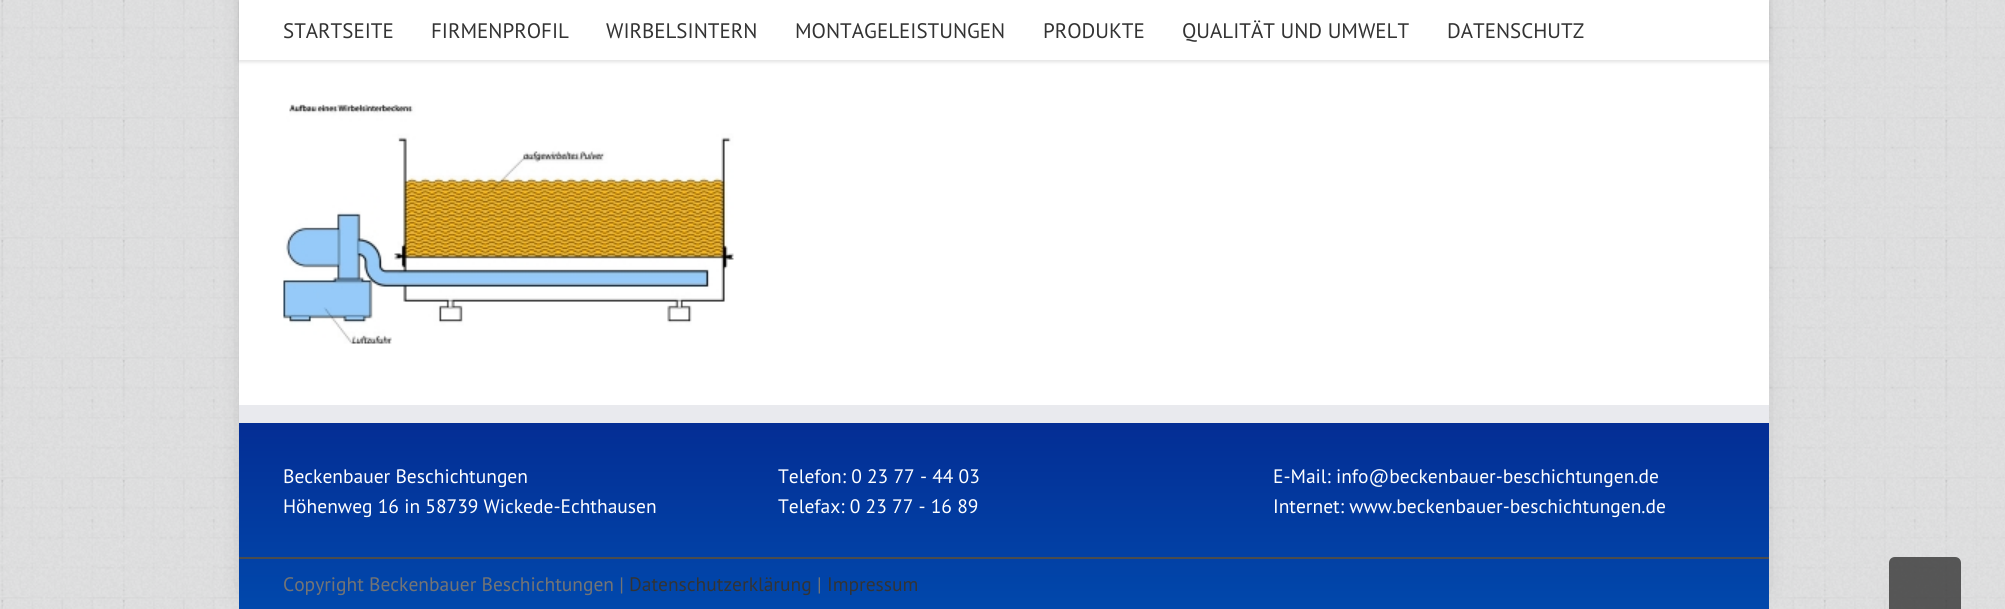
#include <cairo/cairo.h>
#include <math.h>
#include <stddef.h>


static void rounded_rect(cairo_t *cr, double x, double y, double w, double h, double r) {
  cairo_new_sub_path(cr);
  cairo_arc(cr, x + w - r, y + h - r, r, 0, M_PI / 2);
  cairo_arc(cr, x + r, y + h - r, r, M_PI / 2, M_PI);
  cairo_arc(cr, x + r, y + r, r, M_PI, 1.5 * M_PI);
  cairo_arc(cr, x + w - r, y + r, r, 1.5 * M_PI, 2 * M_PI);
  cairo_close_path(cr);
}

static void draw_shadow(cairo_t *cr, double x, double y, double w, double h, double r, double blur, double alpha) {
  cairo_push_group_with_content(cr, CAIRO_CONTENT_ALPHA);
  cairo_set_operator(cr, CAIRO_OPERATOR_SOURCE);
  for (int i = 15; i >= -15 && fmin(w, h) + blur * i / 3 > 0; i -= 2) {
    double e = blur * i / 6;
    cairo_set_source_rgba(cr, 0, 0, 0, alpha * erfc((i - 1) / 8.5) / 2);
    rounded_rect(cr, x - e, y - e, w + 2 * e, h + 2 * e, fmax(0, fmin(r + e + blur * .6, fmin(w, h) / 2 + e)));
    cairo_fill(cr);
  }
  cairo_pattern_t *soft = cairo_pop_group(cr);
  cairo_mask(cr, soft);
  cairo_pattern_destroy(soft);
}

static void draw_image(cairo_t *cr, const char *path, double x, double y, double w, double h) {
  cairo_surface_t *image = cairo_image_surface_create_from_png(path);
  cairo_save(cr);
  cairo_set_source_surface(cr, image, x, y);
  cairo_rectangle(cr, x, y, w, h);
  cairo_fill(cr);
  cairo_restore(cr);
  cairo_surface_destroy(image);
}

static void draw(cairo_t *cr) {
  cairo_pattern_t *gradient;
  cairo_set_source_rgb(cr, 1, 1, 1);
  cairo_paint(cr);
  draw_image(cr, "images/1.png", 0, 0, 2005, 609);
  draw_image(cr, "images/1.png", 0, 0, 2005, 609);
  cairo_set_source_rgb(cr, 51 / 255.0, 51 / 255.0, 51 / 255.0);
  draw_shadow(cr, 261, -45, 1485, 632, 0, 15, 1);
  cairo_set_source_rgb(cr, 1, 1, 1);
  cairo_rectangle(cr, 239, 0, 1530, 405);
  cairo_fill(cr);
  cairo_save(cr);
  cairo_set_fill_rule(cr, CAIRO_FILL_RULE_EVEN_ODD);
  cairo_new_path(cr);
  cairo_move_to(cr, 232, 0);
  cairo_line_to(cr, 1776, 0);
  cairo_line_to(cr, 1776, 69);
  cairo_line_to(cr, 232, 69);
  cairo_close_path(cr);
  cairo_move_to(cr, 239, 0);
  cairo_line_to(cr, 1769, 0);
  cairo_line_to(cr, 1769, 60);
  cairo_line_to(cr, 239, 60);
  cairo_close_path(cr);
  cairo_clip(cr);
  cairo_set_source_rgb(cr, 0, 0, 0);
  draw_shadow(cr, 239, 2, 1530, 60, 0, 2, 0.12);
  cairo_restore(cr);
  cairo_set_source_rgba(cr, 1, 1, 1, 0.97);
  cairo_rectangle(cr, 1768, 1, 1, 59);
  cairo_fill(cr);
  draw_image(cr, "images/2.png", 283, 104, 451, 240);
  gradient = cairo_pattern_create_linear(1004, 405, 1004, 609);
  cairo_pattern_add_color_stop_rgba(gradient, 0, 4 / 255.0, 43 / 255.0, 146 / 255.0, 1);
  cairo_pattern_add_color_stop_rgba(gradient, 1, 1 / 255.0, 72 / 255.0, 172 / 255.0, 1);
  cairo_set_source(cr, gradient);
  cairo_pattern_destroy(gradient);
  cairo_rectangle(cr, 239, 423, 1530, 186);
  cairo_fill(cr);
  cairo_set_source_rgb(cr, 233 / 255.0, 234 / 255.0, 238 / 255.0);
  cairo_rectangle(cr, 239, 405, 1530, 18);
  cairo_fill(cr);
  cairo_set_source_rgb(cr, 75 / 255.0, 76 / 255.0, 77 / 255.0);
  cairo_rectangle(cr, 239, 557, 1530, 2);
  cairo_fill(cr);
  cairo_set_source_rgba(cr, 51 / 255.0, 51 / 255.0, 51 / 255.0, 0.79);
  cairo_new_path(cr);
  cairo_move_to(cr, 1895, 557);
  cairo_line_to(cr, 1955, 557);
  cairo_curve_to(cr, 1958.5, 557, 1961, 559.5, 1961, 563);
  cairo_line_to(cr, 1961, 609);
  cairo_line_to(cr, 1889, 609);
  cairo_line_to(cr, 1889, 563);
  cairo_curve_to(cr, 1889, 559.5, 1891.5, 557, 1895, 557);
  cairo_close_path(cr);
  cairo_fill(cr);
  cairo_select_font_face(cr, "PT Sans", CAIRO_FONT_SLANT_NORMAL, CAIRO_FONT_WEIGHT_NORMAL);
  cairo_set_font_size(cr, 21);
  cairo_set_source_rgb(cr, 51 / 255.0, 51 / 255.0, 51 / 255.0);
  cairo_move_to(cr, 283, 38);
  cairo_show_text(cr, "STARTSEITE");
  cairo_move_to(cr, 431, 38);
  cairo_show_text(cr, "FIRMENPROFIL");
  cairo_move_to(cr, 606, 38);
  cairo_show_text(cr, "WIRBELSINTERN");
  cairo_move_to(cr, 795, 38);
  cairo_show_text(cr, "MONTAGELEISTUNGEN");
  cairo_move_to(cr, 1043, 38);
  cairo_show_text(cr, "PRODUKTE");
  cairo_move_to(cr, 1182, 38);
  cairo_show_text(cr, "QUALITÄT UND UMWELT");
  cairo_move_to(cr, 1447, 38);
  cairo_show_text(cr, "DATENSCHUTZ");
  cairo_set_font_size(cr, 19.5);
  cairo_set_source_rgb(cr, 1, 1, 1);
  cairo_move_to(cr, 283, 483);
  cairo_show_text(cr, "Beckenbauer Beschichtungen");
  cairo_move_to(cr, 283, 513);
  cairo_show_text(cr, "Höhenweg 16 in 58739 Wickede-Echthausen");
  cairo_move_to(cr, 778, 483);
  cairo_show_text(cr, "Telefon: 0 23 77 - 44 03");
  cairo_move_to(cr, 778, 513);
  cairo_show_text(cr, "Telefax: 0 23 77 - 16 89");
  cairo_move_to(cr, 1273, 483);
  cairo_show_text(cr, "E-Mail: info@beckenbauer-beschichtungen.de");
  cairo_move_to(cr, 1273, 513);
  cairo_show_text(cr, "Internet: www.beckenbauer-beschichtungen.de");
  cairo_set_source_rgb(cr, 116 / 255.0, 116 / 255.0, 116 / 255.0);
  cairo_move_to(cr, 283, 591);
  cairo_show_text(cr, "Copyright Beckenbauer Beschichtungen |");
  cairo_set_source_rgb(cr, 51 / 255.0, 51 / 255.0, 51 / 255.0);
  cairo_move_to(cr, 629, 591);
  cairo_show_text(cr, "Datenschutzerklärung");
  cairo_set_source_rgb(cr, 116 / 255.0, 116 / 255.0, 116 / 255.0);
  cairo_move_to(cr, 817, 591);
  cairo_show_text(cr, "|");
  cairo_set_source_rgb(cr, 51 / 255.0, 51 / 255.0, 51 / 255.0);
  cairo_move_to(cr, 827, 591);
  cairo_show_text(cr, "Impressum");
}

int main(void) {
  cairo_surface_t *surface = cairo_image_surface_create(CAIRO_FORMAT_RGB24, 2005, 609);
  cairo_t *cr = cairo_create(surface);
  cairo_font_options_t *options = cairo_font_options_create();
  cairo_font_options_set_hint_metrics(options, CAIRO_HINT_METRICS_OFF);
  cairo_font_options_set_hint_style(options, CAIRO_HINT_STYLE_NONE);
  cairo_set_font_options(cr, options);
  cairo_set_miter_limit(cr, 4);
  draw(cr);
  cairo_surface_write_to_png(surface, "out.png");
  cairo_font_options_destroy(options);
  cairo_destroy(cr);
  cairo_surface_destroy(surface);
  return 0;
}
